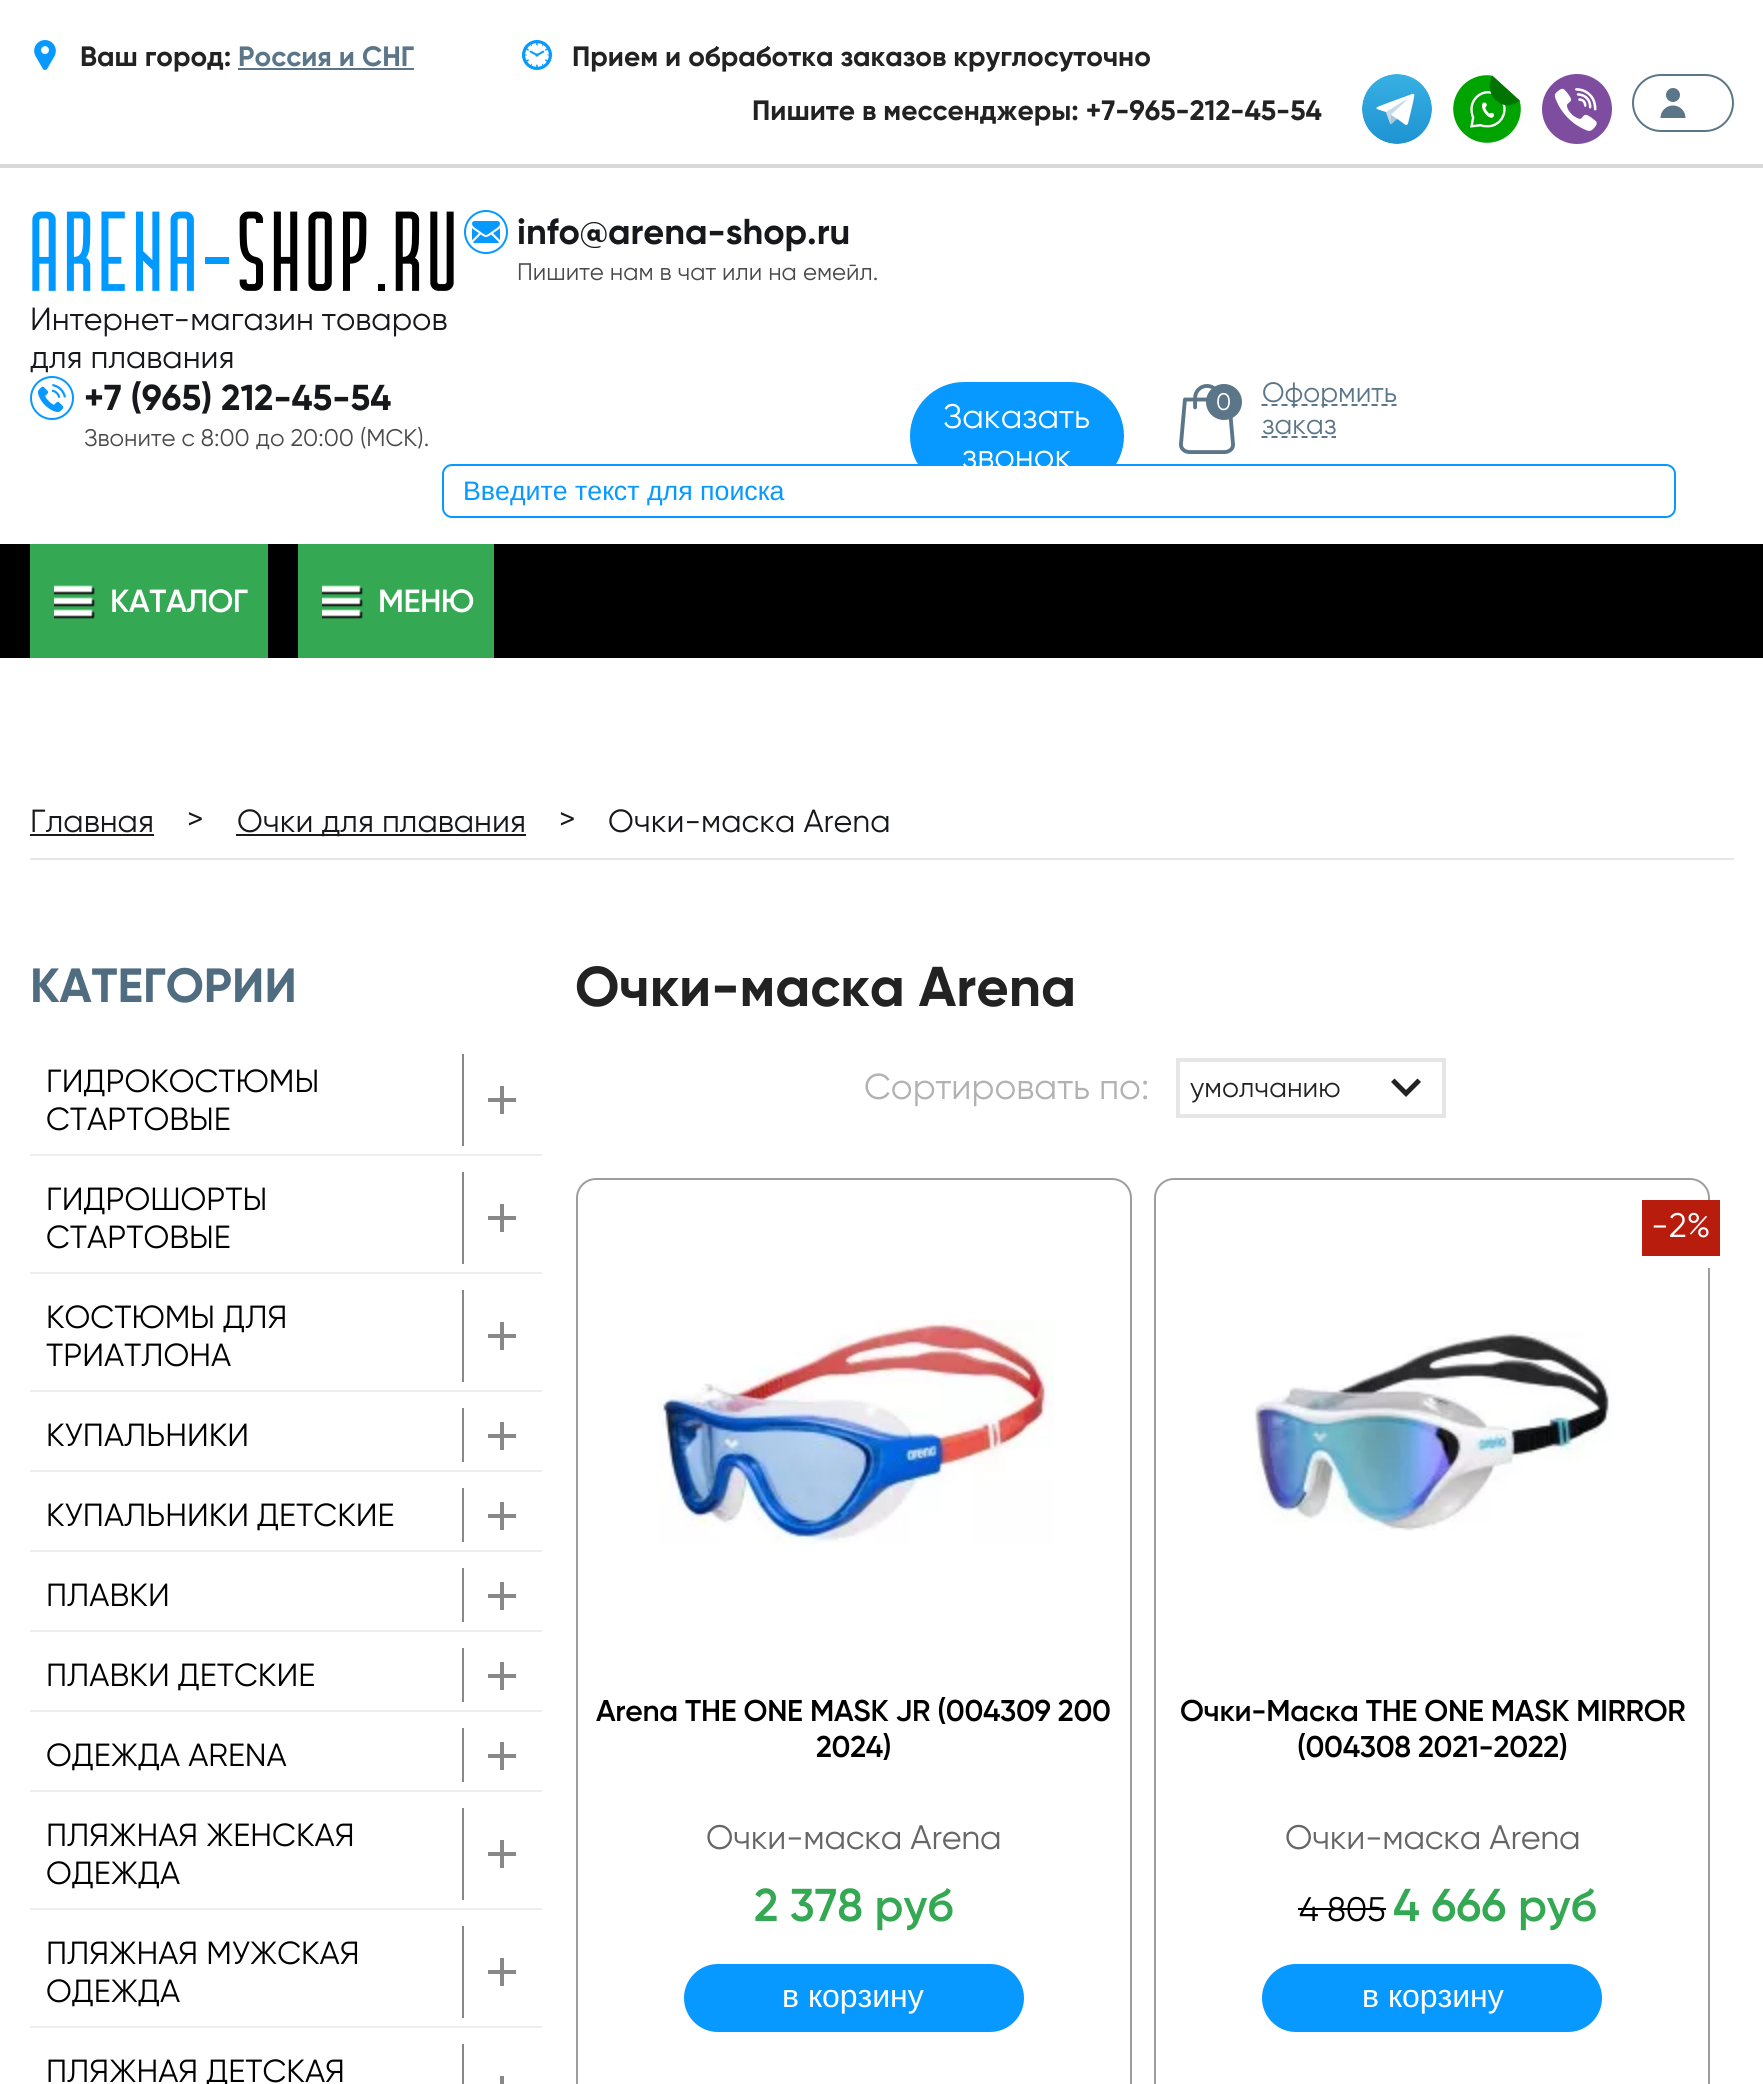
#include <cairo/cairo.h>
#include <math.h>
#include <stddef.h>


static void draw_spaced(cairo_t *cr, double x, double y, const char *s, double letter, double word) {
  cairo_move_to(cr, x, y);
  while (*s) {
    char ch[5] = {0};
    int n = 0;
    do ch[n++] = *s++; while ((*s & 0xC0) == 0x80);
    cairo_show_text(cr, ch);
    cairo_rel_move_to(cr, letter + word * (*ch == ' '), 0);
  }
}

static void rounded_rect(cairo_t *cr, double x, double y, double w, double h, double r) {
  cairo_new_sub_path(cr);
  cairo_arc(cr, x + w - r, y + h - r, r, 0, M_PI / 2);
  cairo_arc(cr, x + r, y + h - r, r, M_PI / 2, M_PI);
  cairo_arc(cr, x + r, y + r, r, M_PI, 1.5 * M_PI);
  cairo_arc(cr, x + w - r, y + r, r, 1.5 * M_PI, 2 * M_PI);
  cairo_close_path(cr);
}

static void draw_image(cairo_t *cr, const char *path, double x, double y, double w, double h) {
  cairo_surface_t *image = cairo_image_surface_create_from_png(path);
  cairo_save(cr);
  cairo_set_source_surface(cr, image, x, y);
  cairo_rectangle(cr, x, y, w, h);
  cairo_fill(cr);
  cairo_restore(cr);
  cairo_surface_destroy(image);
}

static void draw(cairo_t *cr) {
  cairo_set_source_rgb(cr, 1, 1, 1);
  cairo_paint(cr);
  cairo_set_source_rgb(cr, 216 / 255.0, 216 / 255.0, 216 / 255.0);
  cairo_rectangle(cr, 0, 164, 1763, 4);
  cairo_fill(cr);
  draw_image(cr, "images/1.png", 34, 40, 22, 30);
  cairo_set_source_rgb(cr, 92 / 255.0, 118 / 255.0, 137 / 255.0);
  cairo_rectangle(cr, 238, 68, 176, 2);
  cairo_fill(cr);
  draw_image(cr, "images/2.png", 522, 40, 30, 30);
  draw_image(cr, "images/3.png", 1362, 74, 70, 70);
  draw_image(cr, "images/4.png", 1453, 75, 68, 68);
  draw_image(cr, "images/5.png", 1542, 74, 70, 70);
  rounded_rect(cr, 1633, 75, 100, 56, 28);
  cairo_stroke(cr);
  cairo_arc(cr, 1673, 95, 7, 0, 2 * M_PI);
  cairo_fill(cr);
  cairo_new_path(cr);
  cairo_move_to(cr, 1673, 105.5);
  cairo_curve_to(cr, 1666, 105.5, 1660.5, 111, 1660.5, 118);
  cairo_line_to(cr, 1685.5, 118);
  cairo_curve_to(cr, 1685.5, 111, 1680, 105.5, 1673, 105.5);
  cairo_close_path(cr);
  cairo_fill(cr);
  cairo_arc(cr, 486, 232, 21, 0, 2 * M_PI);
  cairo_set_source_rgb(cr, 7 / 255.0, 153 / 255.0, 1);
  cairo_stroke(cr);
  draw_image(cr, "images/6.png", 472, 221, 28, 22);
  draw_image(cr, "images/7.png", 32, 211, 422, 80);
  cairo_arc(cr, 52, 398, 21, 0, 2 * M_PI);
  cairo_stroke(cr);
  draw_image(cr, "images/8.png", 38, 384, 28, 28);
  rounded_rect(cr, 910, 382, 214, 108, 54);
  cairo_fill(cr);
  draw_image(cr, "images/9.png", 1179, 384, 56, 70);
  cairo_set_source_rgb(cr, 92 / 255.0, 118 / 255.0, 137 / 255.0);
  cairo_arc(cr, 1224, 402, 18, 0, 2 * M_PI);
  cairo_fill(cr);
  cairo_new_path(cr);
  cairo_move_to(cr, 1261.5, 405);
  cairo_line_to(cr, 1396.5, 405);
  cairo_set_dash(cr, (double[]){6, 4}, 2, 0);
  cairo_stroke(cr);
  cairo_new_path(cr);
  cairo_move_to(cr, 1261.5, 437);
  cairo_line_to(cr, 1336, 437);
  cairo_stroke(cr);
  cairo_set_source_rgb(cr, 1, 1, 1);
  rounded_rect(cr, 443, 465, 1232, 52, 9);
  cairo_fill_preserve(cr);
  cairo_set_source_rgb(cr, 7 / 255.0, 153 / 255.0, 1);
  cairo_set_dash(cr, NULL, 0, 0);
  cairo_stroke(cr);
  cairo_set_source_rgb(cr, 0, 0, 0);
  cairo_rectangle(cr, 0, 544, 1763, 114);
  cairo_fill(cr);
  cairo_set_source_rgb(cr, 52 / 255.0, 168 / 255.0, 83 / 255.0);
  cairo_rectangle(cr, 30, 544, 238, 114);
  cairo_fill(cr);
  draw_image(cr, "images/10.png", 54, 585, 41, 34);
  cairo_rectangle(cr, 298, 544, 196, 114);
  cairo_fill(cr);
  draw_image(cr, "images/10.png", 322, 585, 41, 34);
  cairo_set_source_rgb(cr, 230 / 255.0, 230 / 255.0, 230 / 255.0);
  cairo_rectangle(cr, 30, 858, 1704, 2);
  cairo_fill(cr);
  cairo_set_source_rgb(cr, 26 / 255.0, 26 / 255.0, 26 / 255.0);
  cairo_rectangle(cr, 30, 834, 124, 2);
  cairo_fill(cr);
  cairo_rectangle(cr, 236, 834, 290, 2);
  cairo_fill(cr);
  cairo_set_source_rgb(cr, 238 / 255.0, 238 / 255.0, 238 / 255.0);
  cairo_rectangle(cr, 30, 1154, 512, 2);
  cairo_fill(cr);
  cairo_set_source_rgb(cr, 136 / 255.0, 136 / 255.0, 136 / 255.0);
  cairo_rectangle(cr, 462, 1054, 2, 92);
  cairo_fill(cr);
  draw_image(cr, "images/11.png", 488, 1086, 28, 28);
  cairo_set_source_rgb(cr, 238 / 255.0, 238 / 255.0, 238 / 255.0);
  cairo_rectangle(cr, 30, 1272, 512, 2);
  cairo_fill(cr);
  cairo_set_source_rgb(cr, 136 / 255.0, 136 / 255.0, 136 / 255.0);
  cairo_rectangle(cr, 462, 1172, 2, 92);
  cairo_fill(cr);
  draw_image(cr, "images/11.png", 488, 1204, 28, 28);
  cairo_set_source_rgb(cr, 238 / 255.0, 238 / 255.0, 238 / 255.0);
  cairo_rectangle(cr, 30, 1390, 512, 2);
  cairo_fill(cr);
  cairo_set_source_rgb(cr, 136 / 255.0, 136 / 255.0, 136 / 255.0);
  cairo_rectangle(cr, 462, 1290, 2, 92);
  cairo_fill(cr);
  draw_image(cr, "images/11.png", 488, 1322, 28, 28);
  cairo_set_source_rgb(cr, 238 / 255.0, 238 / 255.0, 238 / 255.0);
  cairo_rectangle(cr, 30, 1470, 512, 2);
  cairo_fill(cr);
  cairo_set_source_rgb(cr, 136 / 255.0, 136 / 255.0, 136 / 255.0);
  cairo_rectangle(cr, 462, 1408, 2, 54);
  cairo_fill(cr);
  draw_image(cr, "images/11.png", 488, 1422, 28, 28);
  cairo_set_source_rgb(cr, 238 / 255.0, 238 / 255.0, 238 / 255.0);
  cairo_rectangle(cr, 30, 1550, 512, 2);
  cairo_fill(cr);
  cairo_set_source_rgb(cr, 136 / 255.0, 136 / 255.0, 136 / 255.0);
  cairo_rectangle(cr, 462, 1488, 2, 54);
  cairo_fill(cr);
  draw_image(cr, "images/11.png", 488, 1502, 28, 28);
  cairo_set_source_rgb(cr, 238 / 255.0, 238 / 255.0, 238 / 255.0);
  cairo_rectangle(cr, 30, 1630, 512, 2);
  cairo_fill(cr);
  cairo_set_source_rgb(cr, 136 / 255.0, 136 / 255.0, 136 / 255.0);
  cairo_rectangle(cr, 462, 1568, 2, 54);
  cairo_fill(cr);
  draw_image(cr, "images/11.png", 488, 1582, 28, 28);
  cairo_set_source_rgb(cr, 238 / 255.0, 238 / 255.0, 238 / 255.0);
  cairo_rectangle(cr, 30, 1710, 512, 2);
  cairo_fill(cr);
  cairo_set_source_rgb(cr, 136 / 255.0, 136 / 255.0, 136 / 255.0);
  cairo_rectangle(cr, 462, 1648, 2, 54);
  cairo_fill(cr);
  draw_image(cr, "images/11.png", 488, 1662, 28, 28);
  cairo_set_source_rgb(cr, 238 / 255.0, 238 / 255.0, 238 / 255.0);
  cairo_rectangle(cr, 30, 1790, 512, 2);
  cairo_fill(cr);
  cairo_set_source_rgb(cr, 136 / 255.0, 136 / 255.0, 136 / 255.0);
  cairo_rectangle(cr, 462, 1728, 2, 54);
  cairo_fill(cr);
  draw_image(cr, "images/11.png", 488, 1742, 28, 28);
  cairo_set_source_rgb(cr, 238 / 255.0, 238 / 255.0, 238 / 255.0);
  cairo_rectangle(cr, 30, 1908, 512, 2);
  cairo_fill(cr);
  cairo_set_source_rgb(cr, 136 / 255.0, 136 / 255.0, 136 / 255.0);
  cairo_rectangle(cr, 462, 1808, 2, 92);
  cairo_fill(cr);
  draw_image(cr, "images/11.png", 488, 1840, 28, 28);
  cairo_set_source_rgb(cr, 238 / 255.0, 238 / 255.0, 238 / 255.0);
  cairo_rectangle(cr, 30, 2026, 512, 2);
  cairo_fill(cr);
  cairo_set_source_rgb(cr, 136 / 255.0, 136 / 255.0, 136 / 255.0);
  cairo_rectangle(cr, 462, 1926, 2, 92);
  cairo_fill(cr);
  draw_image(cr, "images/11.png", 488, 1958, 28, 28);
  cairo_rectangle(cr, 462, 2044, 2, 40);
  cairo_fill(cr);
  cairo_rectangle(cr, 500, 2076, 4, 8);
  cairo_fill(cr);
  cairo_rectangle(cr, 1178, 1060, 266, 56);
  cairo_set_source_rgb(cr, 230 / 255.0, 230 / 255.0, 230 / 255.0);
  cairo_set_line_width(cr, 4);
  cairo_stroke(cr);
  cairo_set_source_rgb(cr, 34 / 255.0, 34 / 255.0, 34 / 255.0);
  cairo_new_path(cr);
  cairo_move_to(cr, 1394.5, 1078.5);
  cairo_line_to(cr, 1406, 1090);
  cairo_line_to(cr, 1417.5, 1078.5);
  cairo_line_to(cr, 1421, 1082);
  cairo_line_to(cr, 1406, 1097);
  cairo_line_to(cr, 1391, 1082);
  cairo_close_path(cr);
  cairo_fill(cr);
  rounded_rect(cr, 577, 1179, 554, 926, 19);
  cairo_set_source_rgb(cr, 158 / 255.0, 158 / 255.0, 158 / 255.0);
  cairo_set_line_width(cr, 2);
  cairo_stroke(cr);
  draw_image(cr, "images/12.png", 658, 1320, 396, 225);
  cairo_set_source_rgb(cr, 7 / 255.0, 153 / 255.0, 1);
  rounded_rect(cr, 685, 1965, 338, 66, 33);
  cairo_fill_preserve(cr);
  cairo_stroke(cr);
  rounded_rect(cr, 1155, 1179, 554, 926, 19);
  cairo_set_source_rgb(cr, 158 / 255.0, 158 / 255.0, 158 / 255.0);
  cairo_stroke(cr);
  cairo_set_source_rgb(cr, 184 / 255.0, 28 / 255.0, 13 / 255.0);
  cairo_rectangle(cr, 1642, 1200, 78, 56);
  cairo_fill(cr);
  cairo_set_source_rgb(cr, 1, 1, 1);
  cairo_rectangle(cr, 1708, 1256, 2, 12);
  cairo_fill(cr);
  draw_image(cr, "images/13.png", 1251, 1330, 361, 201);
  cairo_set_source_rgb(cr, 0, 0, 0);
  cairo_rectangle(cr, 1298, 1908, 88, 2);
  cairo_fill(cr);
  cairo_set_source_rgb(cr, 7 / 255.0, 153 / 255.0, 1);
  rounded_rect(cr, 1263, 1965, 338, 66, 33);
  cairo_fill_preserve(cr);
  cairo_stroke(cr);
  cairo_select_font_face(cr, "Gilroy", CAIRO_FONT_SLANT_NORMAL, CAIRO_FONT_WEIGHT_BOLD);
  cairo_set_font_size(cr, 28);
  cairo_set_source_rgb(cr, 34 / 255.0, 34 / 255.0, 34 / 255.0);
  cairo_move_to(cr, 80, 66);
  cairo_show_text(cr, "Ваш город:");
  cairo_set_source_rgb(cr, 92 / 255.0, 118 / 255.0, 137 / 255.0);
  cairo_move_to(cr, 238, 66);
  cairo_show_text(cr, "Россия и СНГ");
  cairo_set_source_rgb(cr, 34 / 255.0, 34 / 255.0, 34 / 255.0);
  cairo_move_to(cr, 572, 66);
  cairo_show_text(cr, "Прием и обработка заказов круглосуточно");
  cairo_move_to(cr, 752, 120);
  cairo_show_text(cr, "Пишите в мессенджеры: +7-965-212-45-54");
  cairo_set_font_size(cr, 36);
  cairo_set_source_rgb(cr, 23 / 255.0, 24 / 255.0, 27 / 255.0);
  cairo_move_to(cr, 517, 244);
  cairo_show_text(cr, "info@arena-shop.ru");
  cairo_select_font_face(cr, "Gilroy", CAIRO_FONT_SLANT_NORMAL, CAIRO_FONT_WEIGHT_NORMAL);
  cairo_set_font_size(cr, 24);
  cairo_set_source_rgb(cr, 74 / 255.0, 74 / 255.0, 76 / 255.0);
  cairo_move_to(cr, 517, 280);
  cairo_show_text(cr, "Пишите нам в чат или на емейл.");
  cairo_set_font_size(cr, 32);
  cairo_set_source_rgb(cr, 23 / 255.0, 24 / 255.0, 27 / 255.0);
  cairo_move_to(cr, 30, 330);
  cairo_show_text(cr, "Интернет-магазин товаров");
  cairo_move_to(cr, 30, 368);
  cairo_show_text(cr, "для плавания");
  cairo_select_font_face(cr, "Gilroy", CAIRO_FONT_SLANT_NORMAL, CAIRO_FONT_WEIGHT_BOLD);
  cairo_set_font_size(cr, 36);
  cairo_move_to(cr, 84, 410);
  cairo_show_text(cr, "+7 (965) 212-45-54");
  cairo_select_font_face(cr, "Gilroy", CAIRO_FONT_SLANT_NORMAL, CAIRO_FONT_WEIGHT_NORMAL);
  cairo_set_font_size(cr, 24);
  cairo_set_source_rgb(cr, 74 / 255.0, 74 / 255.0, 76 / 255.0);
  cairo_move_to(cr, 84, 446);
  cairo_show_text(cr, "Звоните с 8:00 до 20:00 (МСК).");
  cairo_set_font_size(cr, 34);
  cairo_set_source_rgb(cr, 1, 1, 1);
  cairo_move_to(cr, 943, 428);
  cairo_show_text(cr, "Заказать");
  cairo_move_to(cr, 962, 468);
  cairo_show_text(cr, "звонок");
  cairo_set_font_size(cr, 24);
  cairo_move_to(cr, 1216, 410);
  cairo_show_text(cr, "0");
  cairo_set_font_size(cr, 28);
  cairo_set_source_rgb(cr, 92 / 255.0, 118 / 255.0, 137 / 255.0);
  cairo_move_to(cr, 1262, 402);
  cairo_show_text(cr, "Оформить");
  cairo_move_to(cr, 1262, 434);
  cairo_show_text(cr, "заказ");
  cairo_select_font_face(cr, "Liberation Sans", CAIRO_FONT_SLANT_NORMAL, CAIRO_FONT_WEIGHT_NORMAL);
  cairo_set_font_size(cr, 26.75);
  cairo_set_source_rgb(cr, 7 / 255.0, 153 / 255.0, 1);
  cairo_move_to(cr, 463, 500);
  cairo_show_text(cr, "Введите текст для поиска");
  cairo_select_font_face(cr, "Gilroy SemiBold", CAIRO_FONT_SLANT_NORMAL, CAIRO_FONT_WEIGHT_NORMAL);
  cairo_set_font_size(cr, 32);
  cairo_set_source_rgb(cr, 1, 1, 1);
  draw_spaced(cr, 110, 612, "КАТАЛОГ", -0.5, 0);
  draw_spaced(cr, 378, 612, "МЕНЮ", -0.5, 0);
  cairo_select_font_face(cr, "Gilroy", CAIRO_FONT_SLANT_NORMAL, CAIRO_FONT_WEIGHT_NORMAL);
  cairo_set_source_rgb(cr, 23 / 255.0, 24 / 255.0, 27 / 255.0);
  cairo_move_to(cr, 30, 832);
  cairo_show_text(cr, "Главная");
  cairo_move_to(cr, 187, 830);
  cairo_show_text(cr, ">");
  cairo_move_to(cr, 237, 832);
  cairo_show_text(cr, "Очки для плавания");
  cairo_move_to(cr, 559, 830);
  cairo_show_text(cr, ">");
  cairo_move_to(cr, 608, 832);
  cairo_show_text(cr, "Очки-маска Arena");
  cairo_select_font_face(cr, "Gilroy", CAIRO_FONT_SLANT_NORMAL, CAIRO_FONT_WEIGHT_BOLD);
  cairo_set_font_size(cr, 48);
  cairo_set_source_rgb(cr, 80 / 255.0, 108 / 255.0, 129 / 255.0);
  cairo_move_to(cr, 30, 1002);
  cairo_show_text(cr, "КАТЕГОРИИ");
  cairo_select_font_face(cr, "Gilroy", CAIRO_FONT_SLANT_NORMAL, CAIRO_FONT_WEIGHT_NORMAL);
  cairo_set_font_size(cr, 32);
  cairo_set_source_rgb(cr, 0, 0, 0);
  cairo_move_to(cr, 46, 1092);
  cairo_show_text(cr, "ГИДРОКОСТЮМЫ");
  cairo_move_to(cr, 46, 1130);
  cairo_show_text(cr, "СТАРТОВЫЕ");
  cairo_move_to(cr, 46, 1210);
  cairo_show_text(cr, "ГИДРОШОРТЫ");
  cairo_move_to(cr, 46, 1248);
  cairo_show_text(cr, "СТАРТОВЫЕ");
  cairo_move_to(cr, 46, 1328);
  cairo_show_text(cr, "КОСТЮМЫ ДЛЯ");
  cairo_move_to(cr, 46, 1366);
  cairo_show_text(cr, "ТРИАТЛОНА");
  cairo_move_to(cr, 46, 1446);
  cairo_show_text(cr, "КУПАЛЬНИКИ");
  cairo_move_to(cr, 46, 1526);
  cairo_show_text(cr, "КУПАЛЬНИКИ ДЕТСКИЕ");
  cairo_move_to(cr, 46, 1606);
  cairo_show_text(cr, "ПЛАВКИ");
  cairo_move_to(cr, 46, 1686);
  cairo_show_text(cr, "ПЛАВКИ ДЕТСКИЕ");
  cairo_move_to(cr, 46, 1766);
  cairo_show_text(cr, "ОДЕЖДА ARENA");
  cairo_move_to(cr, 46, 1846);
  cairo_show_text(cr, "ПЛЯЖНАЯ ЖЕНСКАЯ");
  cairo_move_to(cr, 46, 1884);
  cairo_show_text(cr, "ОДЕЖДА");
  cairo_move_to(cr, 46, 1964);
  cairo_show_text(cr, "ПЛЯЖНАЯ МУЖСКАЯ");
  cairo_move_to(cr, 46, 2002);
  cairo_show_text(cr, "ОДЕЖДА");
  cairo_move_to(cr, 46, 2082);
  cairo_show_text(cr, "ПЛЯЖНАЯ ДЕТСКАЯ");
  cairo_select_font_face(cr, "Gilroy", CAIRO_FONT_SLANT_NORMAL, CAIRO_FONT_WEIGHT_BOLD);
  cairo_set_font_size(cr, 56);
  cairo_set_source_rgb(cr, 34 / 255.0, 34 / 255.0, 34 / 255.0);
  cairo_move_to(cr, 575, 1006);
  cairo_show_text(cr, "Очки-маска Arena");
  cairo_select_font_face(cr, "Gilroy", CAIRO_FONT_SLANT_NORMAL, CAIRO_FONT_WEIGHT_NORMAL);
  cairo_set_font_size(cr, 36);
  cairo_set_source_rgb(cr, 178 / 255.0, 178 / 255.0, 178 / 255.0);
  cairo_move_to(cr, 864, 1099);
  cairo_show_text(cr, "Сортировать по:");
  cairo_set_font_size(cr, 28);
  cairo_set_source_rgb(cr, 34 / 255.0, 34 / 255.0, 34 / 255.0);
  cairo_move_to(cr, 1190, 1097);
  cairo_show_text(cr, "умолчанию");
  cairo_select_font_face(cr, "Gilroy SemiBold", CAIRO_FONT_SLANT_NORMAL, CAIRO_FONT_WEIGHT_NORMAL);
  cairo_set_font_size(cr, 30);
  cairo_set_source_rgb(cr, 0, 0, 0);
  draw_spaced(cr, 596, 1721, "Arena THE ONE MASK JR (004309 200", -0.3, 0);
  draw_spaced(cr, 816, 1757, "2024)", -0.3, 0);
  cairo_select_font_face(cr, "Gilroy", CAIRO_FONT_SLANT_NORMAL, CAIRO_FONT_WEIGHT_NORMAL);
  cairo_set_font_size(cr, 34);
  cairo_set_source_rgb(cr, 102 / 255.0, 102 / 255.0, 102 / 255.0);
  draw_spaced(cr, 706, 1849, "Очки-маска Arena", -0.3, 0);
  cairo_select_font_face(cr, "Gilroy SemiBold", CAIRO_FONT_SLANT_NORMAL, CAIRO_FONT_WEIGHT_NORMAL);
  cairo_set_font_size(cr, 46);
  cairo_set_source_rgb(cr, 52 / 255.0, 168 / 255.0, 83 / 255.0);
  cairo_move_to(cr, 754, 1921);
  cairo_show_text(cr, "2 378 руб");
  cairo_select_font_face(cr, "Liberation Sans", CAIRO_FONT_SLANT_NORMAL, CAIRO_FONT_WEIGHT_NORMAL);
  cairo_set_font_size(cr, 32);
  cairo_set_source_rgb(cr, 1, 1, 1);
  cairo_move_to(cr, 782, 2007);
  cairo_show_text(cr, "в корзину");
  cairo_select_font_face(cr, "Gilroy", CAIRO_FONT_SLANT_NORMAL, CAIRO_FONT_WEIGHT_NORMAL);
  cairo_set_font_size(cr, 34);
  cairo_move_to(cr, 1651, 1237);
  cairo_show_text(cr, "-2%");
  cairo_select_font_face(cr, "Gilroy SemiBold", CAIRO_FONT_SLANT_NORMAL, CAIRO_FONT_WEIGHT_NORMAL);
  cairo_set_font_size(cr, 30);
  cairo_set_source_rgb(cr, 0, 0, 0);
  draw_spaced(cr, 1180, 1721, "Очки-Маска THE ONE MASK MIRROR", -0.3, 0);
  draw_spaced(cr, 1297, 1757, "(004308 2021-2022)", -0.3, 0);
  cairo_select_font_face(cr, "Gilroy", CAIRO_FONT_SLANT_NORMAL, CAIRO_FONT_WEIGHT_NORMAL);
  cairo_set_font_size(cr, 34);
  cairo_set_source_rgb(cr, 102 / 255.0, 102 / 255.0, 102 / 255.0);
  draw_spaced(cr, 1285, 1849, "Очки-маска Arena", -0.3, 0);
  cairo_set_source_rgb(cr, 0, 0, 0);
  cairo_move_to(cr, 1299, 1921);
  cairo_show_text(cr, "4 805");
  cairo_select_font_face(cr, "Gilroy SemiBold", CAIRO_FONT_SLANT_NORMAL, CAIRO_FONT_WEIGHT_NORMAL);
  cairo_set_font_size(cr, 46);
  cairo_set_source_rgb(cr, 52 / 255.0, 168 / 255.0, 83 / 255.0);
  cairo_move_to(cr, 1393, 1921);
  cairo_show_text(cr, "4 666 руб");
  cairo_select_font_face(cr, "Liberation Sans", CAIRO_FONT_SLANT_NORMAL, CAIRO_FONT_WEIGHT_NORMAL);
  cairo_set_font_size(cr, 32);
  cairo_set_source_rgb(cr, 1, 1, 1);
  cairo_move_to(cr, 1362, 2007);
  cairo_show_text(cr, "в корзину");
}

int main(void) {
  cairo_surface_t *surface = cairo_image_surface_create(CAIRO_FORMAT_RGB24, 1763, 2084);
  cairo_t *cr = cairo_create(surface);
  cairo_font_options_t *options = cairo_font_options_create();
  cairo_font_options_set_hint_metrics(options, CAIRO_HINT_METRICS_OFF);
  cairo_font_options_set_hint_style(options, CAIRO_HINT_STYLE_NONE);
  cairo_set_font_options(cr, options);
  cairo_set_miter_limit(cr, 4);
  draw(cr);
  cairo_surface_write_to_png(surface, "out.png");
  cairo_font_options_destroy(options);
  cairo_destroy(cr);
  cairo_surface_destroy(surface);
  return 0;
}
